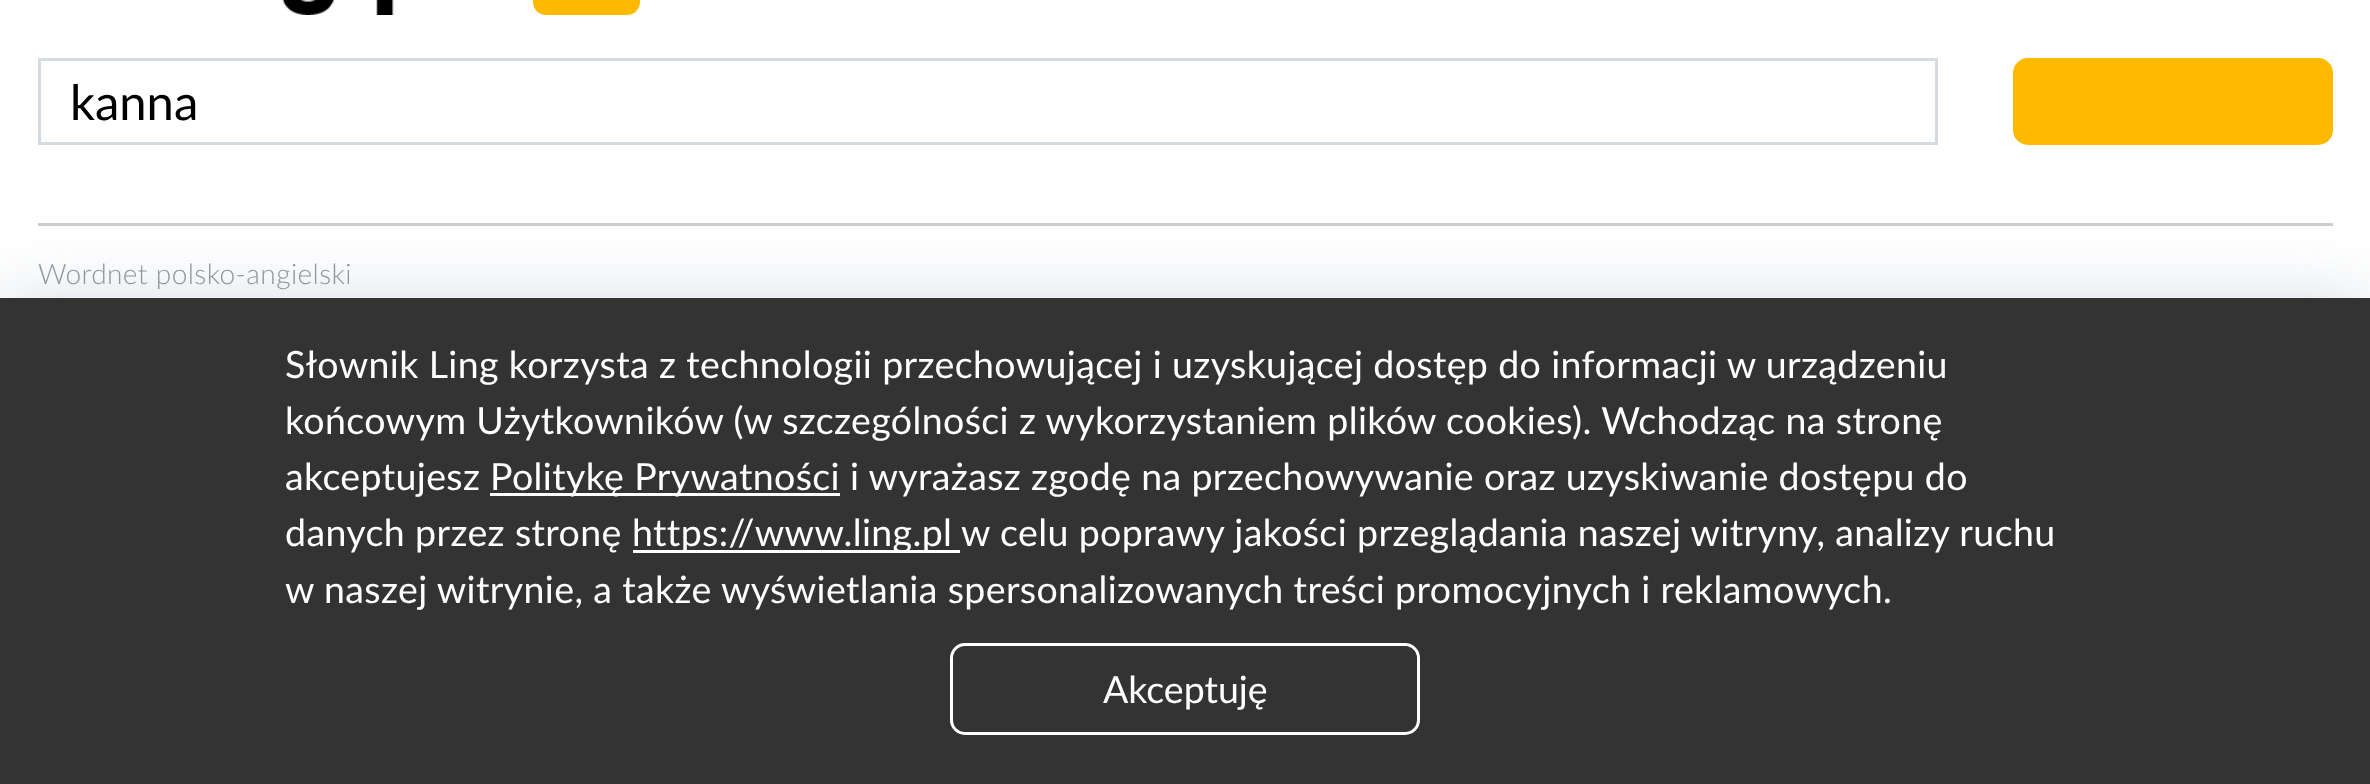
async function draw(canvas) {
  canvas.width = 2370
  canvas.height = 784
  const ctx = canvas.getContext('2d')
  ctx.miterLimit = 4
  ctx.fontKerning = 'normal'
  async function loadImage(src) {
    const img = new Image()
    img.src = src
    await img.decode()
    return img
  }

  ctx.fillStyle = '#fff'
  ctx.fillRect(0, 0, 2370, 784)
  ctx.drawImage(await loadImage('image0.png'), 282, 0, 112, 15)
  ctx.fillStyle = '#ffba00'
  ctx.beginPath()
  ctx.roundRect(533, -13, 107, 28, 13)
  ctx.fill()
  ctx.strokeStyle = '#d6dbdf'
  ctx.lineWidth = 3
  ctx.strokeRect(39.5, 59.5, 1897, 84)
  ctx.font = '49px Lato'
  ctx.fillStyle = '#000'
  ctx.fillText('kanna', 70, 120)
  ctx.fillStyle = '#ffba00'
  ctx.beginPath()
  ctx.roundRect(2014.5, 59.5, 317, 84, 13.5)
  ctx.fill()
  ctx.strokeStyle = '#ffba00'
  ctx.stroke()
  ctx.fillStyle = '#ccc'
  ctx.fillRect(38, 223, 2295, 3)
  ctx.letterSpacing = '0.38px'
  ctx.font = '300 28.1px Lato'
  ctx.fillStyle = '#999'
  ctx.fillText('Wordnet polsko-angielski', 38, 284)
  ctx.fillStyle = '#3c598333'
  ctx.filter = 'blur(34px)'
  ctx.beginPath()
  ctx.rect(0, 298, 2370, 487)
  ctx.fill()
  ctx.filter = 'none'
  ctx.fillStyle = '#333'
  ctx.fillRect(0, 298, 2370, 486)
  ctx.font = '37.5px Lato'
  ctx.fillStyle = '#fff'
  ctx.fillText('Słownik Ling korzysta z technologii przechowującej i uzyskującej dostęp do informacji w urządzeniu', 285, 378)
  ctx.fillText('końcowym Użytkowników (w szczególności z wykorzystaniem plików cookies). Wchodząc na stronę', 285, 434)
  ctx.fillText('akceptujesz', 285, 490)
  ctx.fillRect(490, 493, 350, 3)
  ctx.fillText('Politykę Prywatności i wyrażasz zgodę na przechowywanie oraz uzyskiwanie dostępu do', 490, 490)
  ctx.fillText('danych przez stronę', 285, 546)
  ctx.fillRect(633, 550, 327, 3)
  ctx.fillText('https://www.ling.pl', 632, 546)
  ctx.fillText('w celu poprawy jakości przeglądania naszej witryny, analizy ruchu', 961, 546)
  ctx.fillText('w naszej witrynie, a także wyświetlania spersonalizowanych treści promocyjnych i reklamowych.', 285, 603)
  ctx.beginPath()
  ctx.roundRect(951.5, 644.5, 467, 89, 13.5)
  ctx.strokeStyle = '#fff'
  ctx.stroke()
  ctx.letterSpacing = '0px'
  ctx.fillText('Akceptuję', 1103, 703)
}

draw(document.querySelector('canvas'))
